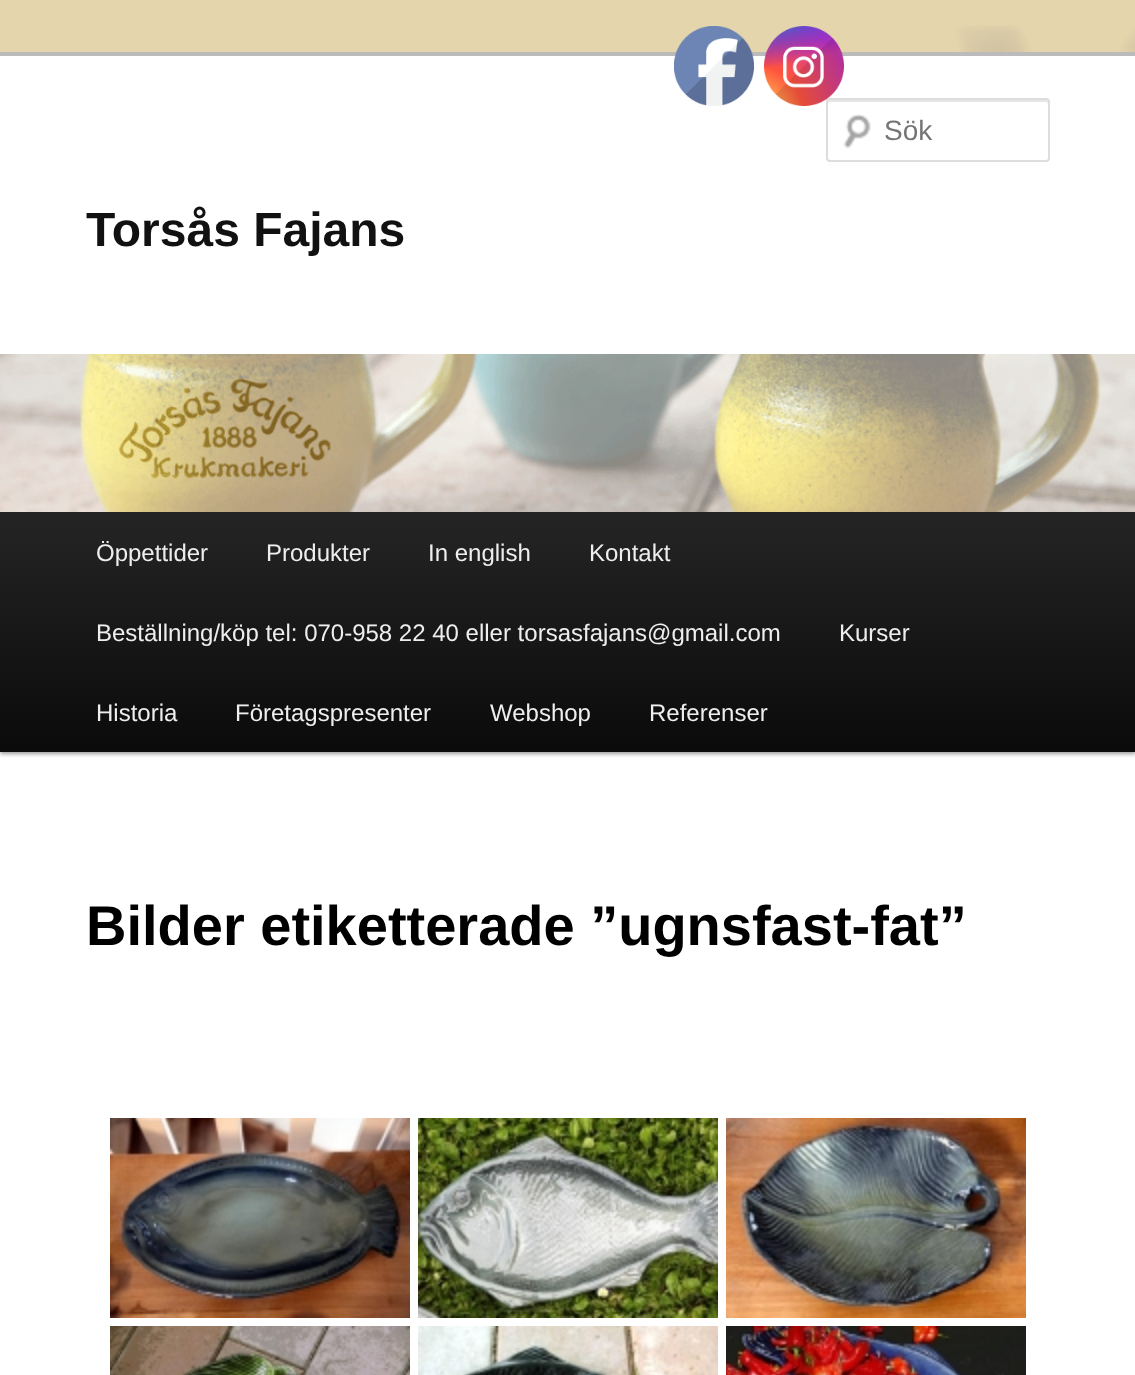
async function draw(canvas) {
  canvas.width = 1135
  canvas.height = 1375
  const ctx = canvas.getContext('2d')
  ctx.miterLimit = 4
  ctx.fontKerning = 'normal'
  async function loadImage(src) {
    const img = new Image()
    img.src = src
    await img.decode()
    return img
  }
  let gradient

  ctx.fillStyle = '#e5d5ad'
  ctx.fillRect(0, 0, 1135, 1375)
  ctx.drawImage(await loadImage('image0.png'), 0, 25, 1135, 27)
  ctx.fillStyle = '#fff'
  ctx.fillRect(0, 56, 1135, 1319)
  ctx.fillStyle = '#bbb'
  ctx.fillRect(0, 52, 1135, 4)
  ctx.drawImage(await loadImage('image1.png'), 674, 26, 80, 80)
  ctx.fillStyle = '#e6e6e6'
  ctx.beginPath()
  ctx.moveTo(830, 102)
  ctx.lineTo(1046, 102)
  ctx.bezierCurveTo(1047, 102, 1048, 103, 1048, 104)
  ctx.lineTo(1048, 102)
  ctx.bezierCurveTo(1048, 101, 1047, 100, 1046, 100)
  ctx.lineTo(830, 100)
  ctx.bezierCurveTo(829, 100, 828, 101, 828, 102)
  ctx.lineTo(828, 104)
  ctx.bezierCurveTo(828, 103, 829, 102, 830, 102)
  ctx.closePath()
  ctx.fill()
  ctx.drawImage(await loadImage('image3.png'), 843, 114, 28, 35)
  ctx.beginPath()
  ctx.roundRect(827, 99, 222, 62, 3)
  ctx.strokeStyle = '#ddd'
  ctx.lineWidth = 2
  ctx.stroke()
  ctx.drawImage(await loadImage('image2.png'), 764, 26, 80, 80)
  ctx.font = '28px Liberation Sans'
  ctx.fillStyle = '#757575'
  ctx.fillText('Sök', 884, 140)
  ctx.font = 'bold 48px Liberation Sans'
  ctx.fillStyle = '#111'
  ctx.fillText('Torsås Fajans', 86, 246)
  ctx.fillStyle = '#00000066'
  ctx.filter = 'blur(2px)'
  ctx.beginPath()
  ctx.rect(0, 514, 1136, 240)
  ctx.fill()
  ctx.filter = 'none'
  ctx.drawImage(await loadImage('image4.png'), 0, 354, 1135, 158)
  gradient = ctx.createLinearGradient(568, 512, 568, 752)
  gradient.addColorStop(0, '#252525')
  gradient.addColorStop(1, '#0a0a0a')
  ctx.fillStyle = gradient
  ctx.fillRect(0, 512, 1135, 240)
  ctx.font = '24px Liberation Sans'
  ctx.fillStyle = '#eee'
  ctx.fillText('Öppettider', 96, 561)
  ctx.fillText('Produkter', 266, 561)
  ctx.fillText('In english', 428, 561)
  ctx.fillText('Kontakt', 589, 561)
  ctx.fillText('Beställning/köp tel: 070-958 22 40 eller torsasfajans@gmail.com', 96, 641)
  ctx.fillText('Kurser', 839, 641)
  ctx.fillText('Historia', 96, 721)
  ctx.fillText('Företagspresenter', 235, 721)
  ctx.fillText('Webshop', 490, 721)
  ctx.fillText('Referenser', 649, 721)
  ctx.font = 'bold 56px Liberation Sans'
  ctx.fillStyle = '#000'
  ctx.fillText('Bilder etiketterade ”ugnsfast-fat”', 86, 945)
  ctx.drawImage(await loadImage('image5.png'), 110, 1118, 300, 200)
  ctx.drawImage(await loadImage('image6.png'), 418, 1118, 300, 200)
  ctx.drawImage(await loadImage('image7.png'), 726, 1118, 300, 200)
  ctx.drawImage(await loadImage('image8.png'), 110, 1326, 300, 49)
  ctx.drawImage(await loadImage('image9.png'), 418, 1326, 300, 49)
  ctx.drawImage(await loadImage('image10.png'), 726, 1326, 300, 49)
}

draw(document.querySelector('canvas'))
